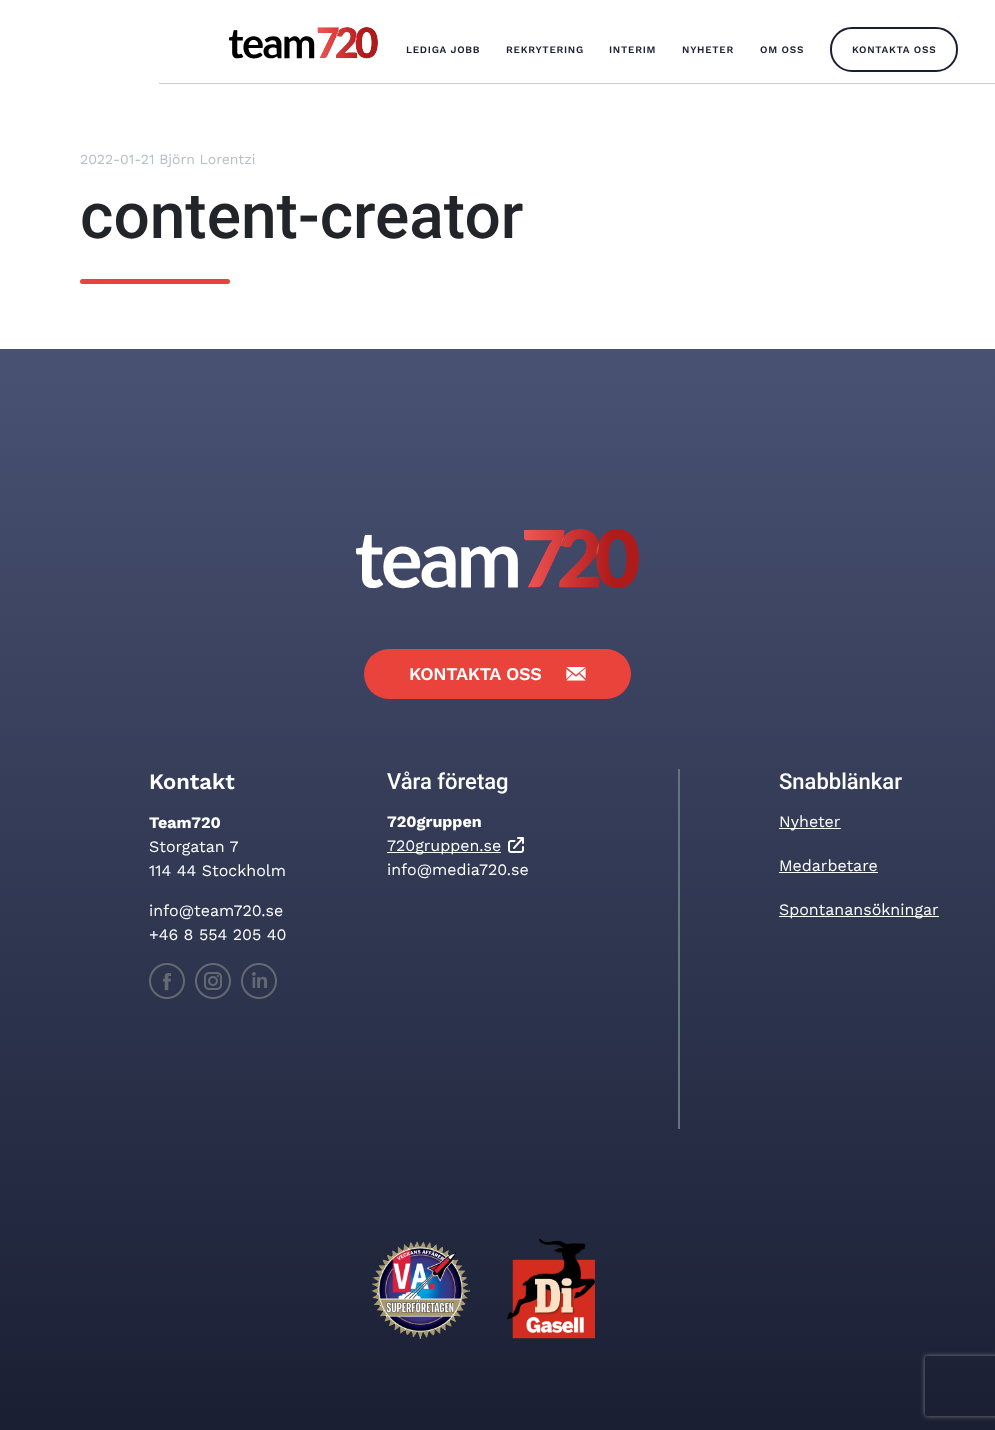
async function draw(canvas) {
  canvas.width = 995
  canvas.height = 1430
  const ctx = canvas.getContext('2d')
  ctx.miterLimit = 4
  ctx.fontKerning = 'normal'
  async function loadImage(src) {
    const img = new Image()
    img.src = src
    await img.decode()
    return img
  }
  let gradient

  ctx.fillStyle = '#fff'
  ctx.fillRect(0, 0, 995, 1430)
  ctx.fillStyle = '#c4cdd5'
  ctx.fillRect(159, 83, 836, 1)
  ctx.drawImage(await loadImage('image0.png'), 229, 27, 149, 32)
  ctx.letterSpacing = '0.75px'
  ctx.font = '600 10px Work Sans'
  ctx.fillStyle = '#191e32'
  ctx.fillText('LEDIGA JOBB', 406, 53)
  ctx.fillText('REKRYTERING', 506, 53)
  ctx.fillText('INTERIM', 609, 53)
  ctx.fillText('NYHETER', 682, 53)
  ctx.fillText('OM OSS', 760, 53)
  ctx.beginPath()
  ctx.roundRect(831, 28, 126, 43, 21)
  ctx.strokeStyle = '#191e32'
  ctx.lineWidth = 2
  ctx.stroke()
  ctx.fillText('KONTAKTA OSS', 852, 53)
  ctx.letterSpacing = '0px'
  ctx.font = '14px Work Sans'
  ctx.fillStyle = '#b7bec7'
  ctx.fillText('2022-01-21 Björn Lorentzi', 80, 164)
  ctx.font = '500 64px Roboto'
  ctx.fillStyle = '#212429'
  ctx.fillText('content-creator', 80, 238)
  ctx.fillStyle = '#ea433c'
  ctx.beginPath()
  ctx.roundRect(80, 279, 150, 5, 2.5)
  ctx.fill()
  gradient = ctx.createLinearGradient(498, 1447, 498, 349)
  gradient.addColorStop(0, '#191e32')
  gradient.addColorStop(1, '#495273')
  gradient.addColorStop(1, '#e5e5e5')
  ctx.fillStyle = gradient
  ctx.fillRect(0, 349, 995, 1081)
  ctx.drawImage(await loadImage('image1.png'), 356, 529, 283, 60)
  ctx.fillStyle = '#ea433c'
  ctx.beginPath()
  ctx.roundRect(364, 649, 267, 50, 25)
  ctx.fill()
  ctx.letterSpacing = '-0.25px'
  ctx.font = '600 18px Work Sans'
  ctx.fillStyle = '#fff'
  ctx.fillText('KONTAKTA OSS', 409, 680)
  ctx.drawImage(await loadImage('image2.png'), 566, 667, 20, 14)
  ctx.letterSpacing = '0px'
  ctx.font = '600 22px Work Sans'
  ctx.fillText('Kontakt', 149, 789)
  ctx.font = 'bold 16px Work Sans'
  ctx.fillText('Team720', 149, 828)
  ctx.font = '16px Work Sans'
  ctx.fillText('Storgatan 7', 149, 852)
  ctx.fillText('114 44 Stockholm', 149, 876)
  ctx.fillText('info@team720.se', 149, 916)
  ctx.fillText('+46 8 554 205 40', 149, 940)
  ctx.drawImage(await loadImage('image3.png'), 149, 963, 36, 36)
  ctx.drawImage(await loadImage('image4.png'), 195, 963, 36, 36)
  ctx.drawImage(await loadImage('image5.png'), 241, 963, 36, 36)
  ctx.font = '500 22px Roboto'
  ctx.fillText('Våra företag', 387, 789)
  ctx.font = 'bold 16px Work Sans'
  ctx.fillText('720gruppen', 387, 827)
  ctx.fillRect(387, 852, 114, 1)
  ctx.font = '16px Work Sans'
  ctx.fillText('720gruppen.se', 387, 851)
  ctx.drawImage(await loadImage('image6.png'), 508, 837, 16, 16)
  ctx.fillText('info@media720.se', 387, 875)
  ctx.fillStyle = '#637381'
  ctx.fillRect(678, 769, 2, 360)
  ctx.font = '500 22px Roboto'
  ctx.fillStyle = '#fff'
  ctx.fillText('Snabblänkar', 779, 789)
  ctx.fillRect(779, 828, 62, 1)
  ctx.font = '16px Work Sans'
  ctx.fillText('Nyheter', 779, 827)
  ctx.fillText('Medarbetare', 779, 871)
  ctx.fillRect(779, 872, 99, 1)
  ctx.fillRect(779, 916, 160, 1)
  ctx.fillText('Spontanansökningar', 779, 915)
  ctx.drawImage(await loadImage('image7.png'), 371, 1241, 99, 98)
  ctx.drawImage(await loadImage('image8.png'), 507, 1239, 88, 100)
  ctx.save()
  ctx.beginPath()
  ctx.moveTo(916, 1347)
  ctx.lineTo(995, 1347)
  ctx.lineTo(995, 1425)
  ctx.lineTo(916, 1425)
  ctx.closePath()
  ctx.moveTo(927, 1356)
  ctx.lineTo(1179, 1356)
  ctx.bezierCurveTo(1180, 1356, 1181, 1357, 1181, 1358)
  ctx.lineTo(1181, 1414)
  ctx.bezierCurveTo(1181, 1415, 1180, 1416, 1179, 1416)
  ctx.lineTo(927, 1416)
  ctx.bezierCurveTo(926, 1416, 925, 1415, 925, 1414)
  ctx.lineTo(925, 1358)
  ctx.bezierCurveTo(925, 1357, 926, 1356, 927, 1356)
  ctx.closePath()
  ctx.clip('evenodd')
  ctx.fillStyle = '#808080'
  ctx.filter = 'blur(2.5px)'
  ctx.beginPath()
  ctx.roundRect(925, 1356, 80, 60, 2)
  ctx.fill()
  ctx.filter = 'none'
  ctx.restore()
}

draw(document.querySelector('canvas'))
